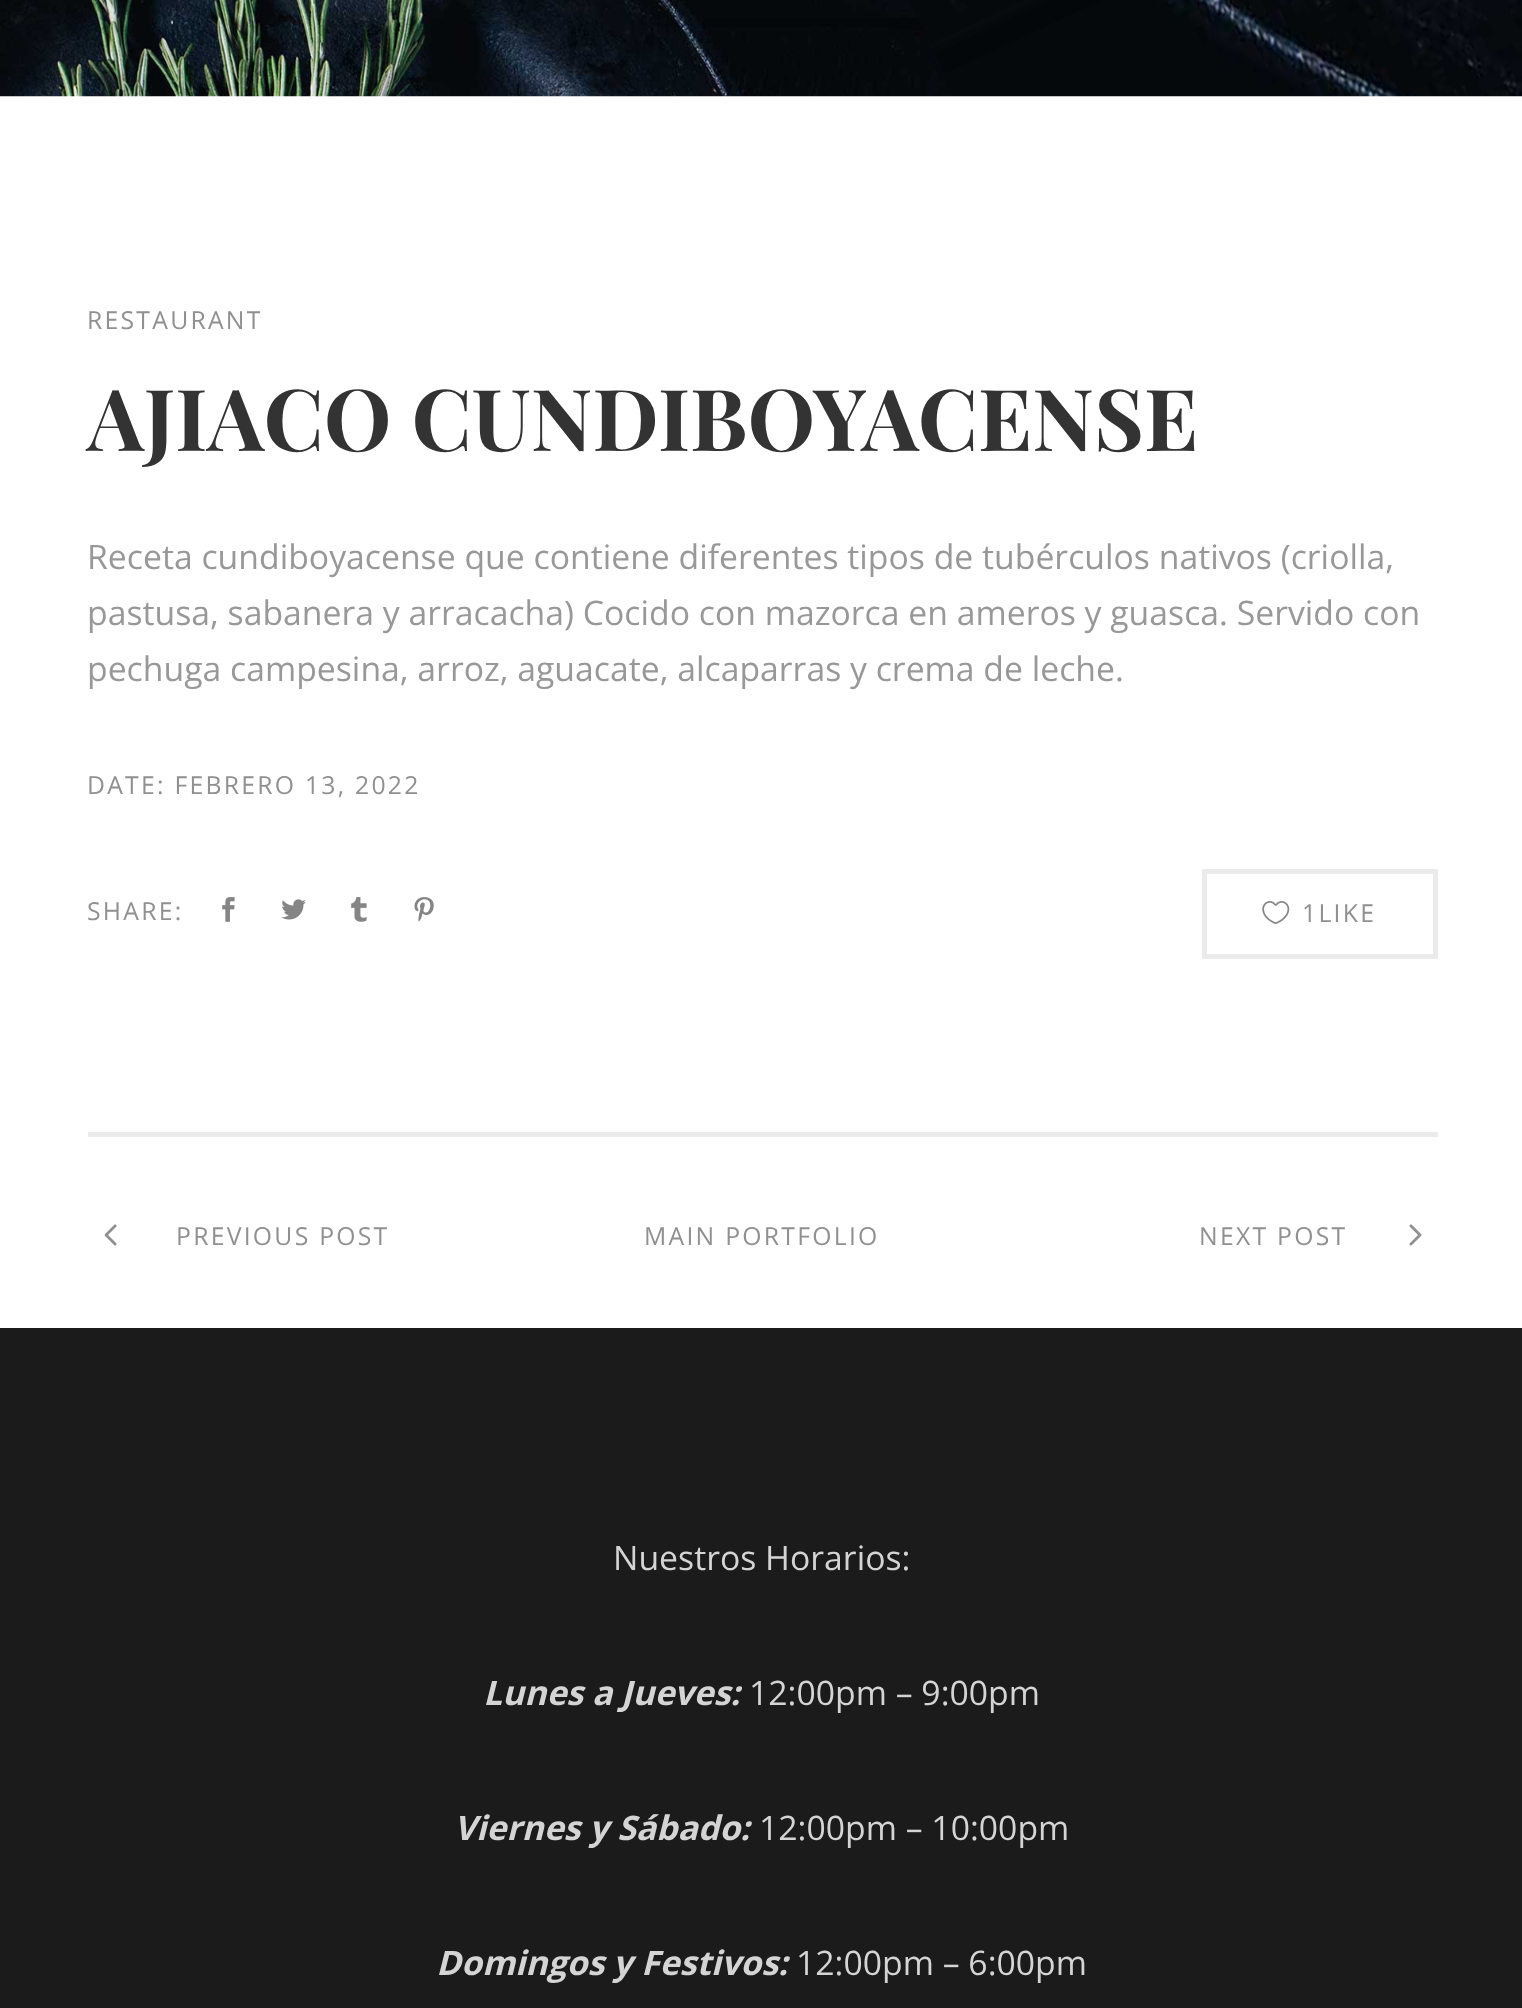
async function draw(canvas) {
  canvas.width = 1522
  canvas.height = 2008
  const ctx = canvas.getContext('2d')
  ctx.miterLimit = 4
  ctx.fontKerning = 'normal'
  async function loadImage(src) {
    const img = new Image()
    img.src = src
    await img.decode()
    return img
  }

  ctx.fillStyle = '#fff'
  ctx.fillRect(0, 0, 1522, 2008)
  ctx.drawImage(await loadImage('image0.png'), 0, 0, 1522, 97)
  ctx.letterSpacing = '2.25px'
  ctx.font = '24.75px Open Sans'
  ctx.fillStyle = '#909090'
  ctx.fillText('RESTAURANT', 87, 329)
  ctx.letterSpacing = '0px'
  ctx.font = 'bold 85.5px Playfair Display'
  ctx.fillStyle = '#333'
  ctx.fillText('AJIACO CUNDIBOYACENSE', 87, 451)
  ctx.font = '33.75px Open Sans'
  ctx.fillStyle = '#989898'
  ctx.fillText('Receta cundiboyacense que contiene diferentes tipos de tubérculos nativos (criolla,', 87, 569)
  ctx.fillText('pastusa, sabanera y arracacha) Cocido con mazorca en ameros y guasca. Servido con', 87, 625)
  ctx.fillText('pechuga campesina, arroz, aguacate, alcaparras y crema de leche.', 87, 681)
  ctx.letterSpacing = '2.25px'
  ctx.font = '24.75px Open Sans'
  ctx.fillStyle = '#909090'
  ctx.fillText('DATE: FEBRERO 13, 2022', 87, 794)
  ctx.fillText('SHARE:', 87, 920)
  ctx.drawImage(await loadImage('image1.png'), 222, 897, 13, 25)
  ctx.drawImage(await loadImage('image2.png'), 281, 899, 25, 21)
  ctx.drawImage(await loadImage('image3.png'), 351, 897, 16, 25)
  ctx.drawImage(await loadImage('image4.png'), 414, 897, 20, 25)
  ctx.strokeStyle = '#ebebeb'
  ctx.lineWidth = 5
  ctx.strokeRect(1204.5, 871.5, 231, 85)
  ctx.drawImage(await loadImage('image5.png'), 1262, 901, 28, 24)
  ctx.fillText('1LIKE', 1302, 922)
  ctx.fillStyle = '#ebebeb'
  ctx.fillRect(88, 1132, 1350, 5)
  ctx.drawImage(await loadImage('image6.png'), 104, 1224, 13, 22)
  ctx.fillStyle = '#909090'
  ctx.fillText('PREVIOUS POST', 176, 1245)
  ctx.fillText('MAIN PORTFOLIO', 644, 1245)
  ctx.fillText('NEXT POST', 1199, 1245)
  ctx.drawImage(await loadImage('image7.png'), 1409, 1224, 13, 22)
  ctx.fillStyle = '#1b1b1b'
  ctx.fillRect(0, 1328, 1522, 680)
  ctx.letterSpacing = '0px'
  ctx.font = '33.75px Open Sans'
  ctx.fillStyle = '#d4d4d4'
  ctx.fillText('Nuestros Horarios:', 613, 1570)
  ctx.font = 'italic bold 33.75px Open Sans'
  ctx.fillText('Lunes a Jueves:', 483, 1705)
  ctx.font = '33.75px Open Sans'
  ctx.fillText('12:00pm – 9:00pm', 749, 1705)
  ctx.font = 'italic bold 33.75px Open Sans'
  ctx.fillText('Viernes y Sábado:', 454, 1840)
  ctx.font = '33.75px Open Sans'
  ctx.fillText('12:00pm – 10:00pm', 759, 1840)
  ctx.font = 'italic bold 33.75px Open Sans'
  ctx.fillText('Domingos y Festivos:', 436, 1975)
  ctx.font = '33.75px Open Sans'
  ctx.fillText('12:00pm – 6:00pm', 796, 1975)
}

draw(document.querySelector('canvas'))
